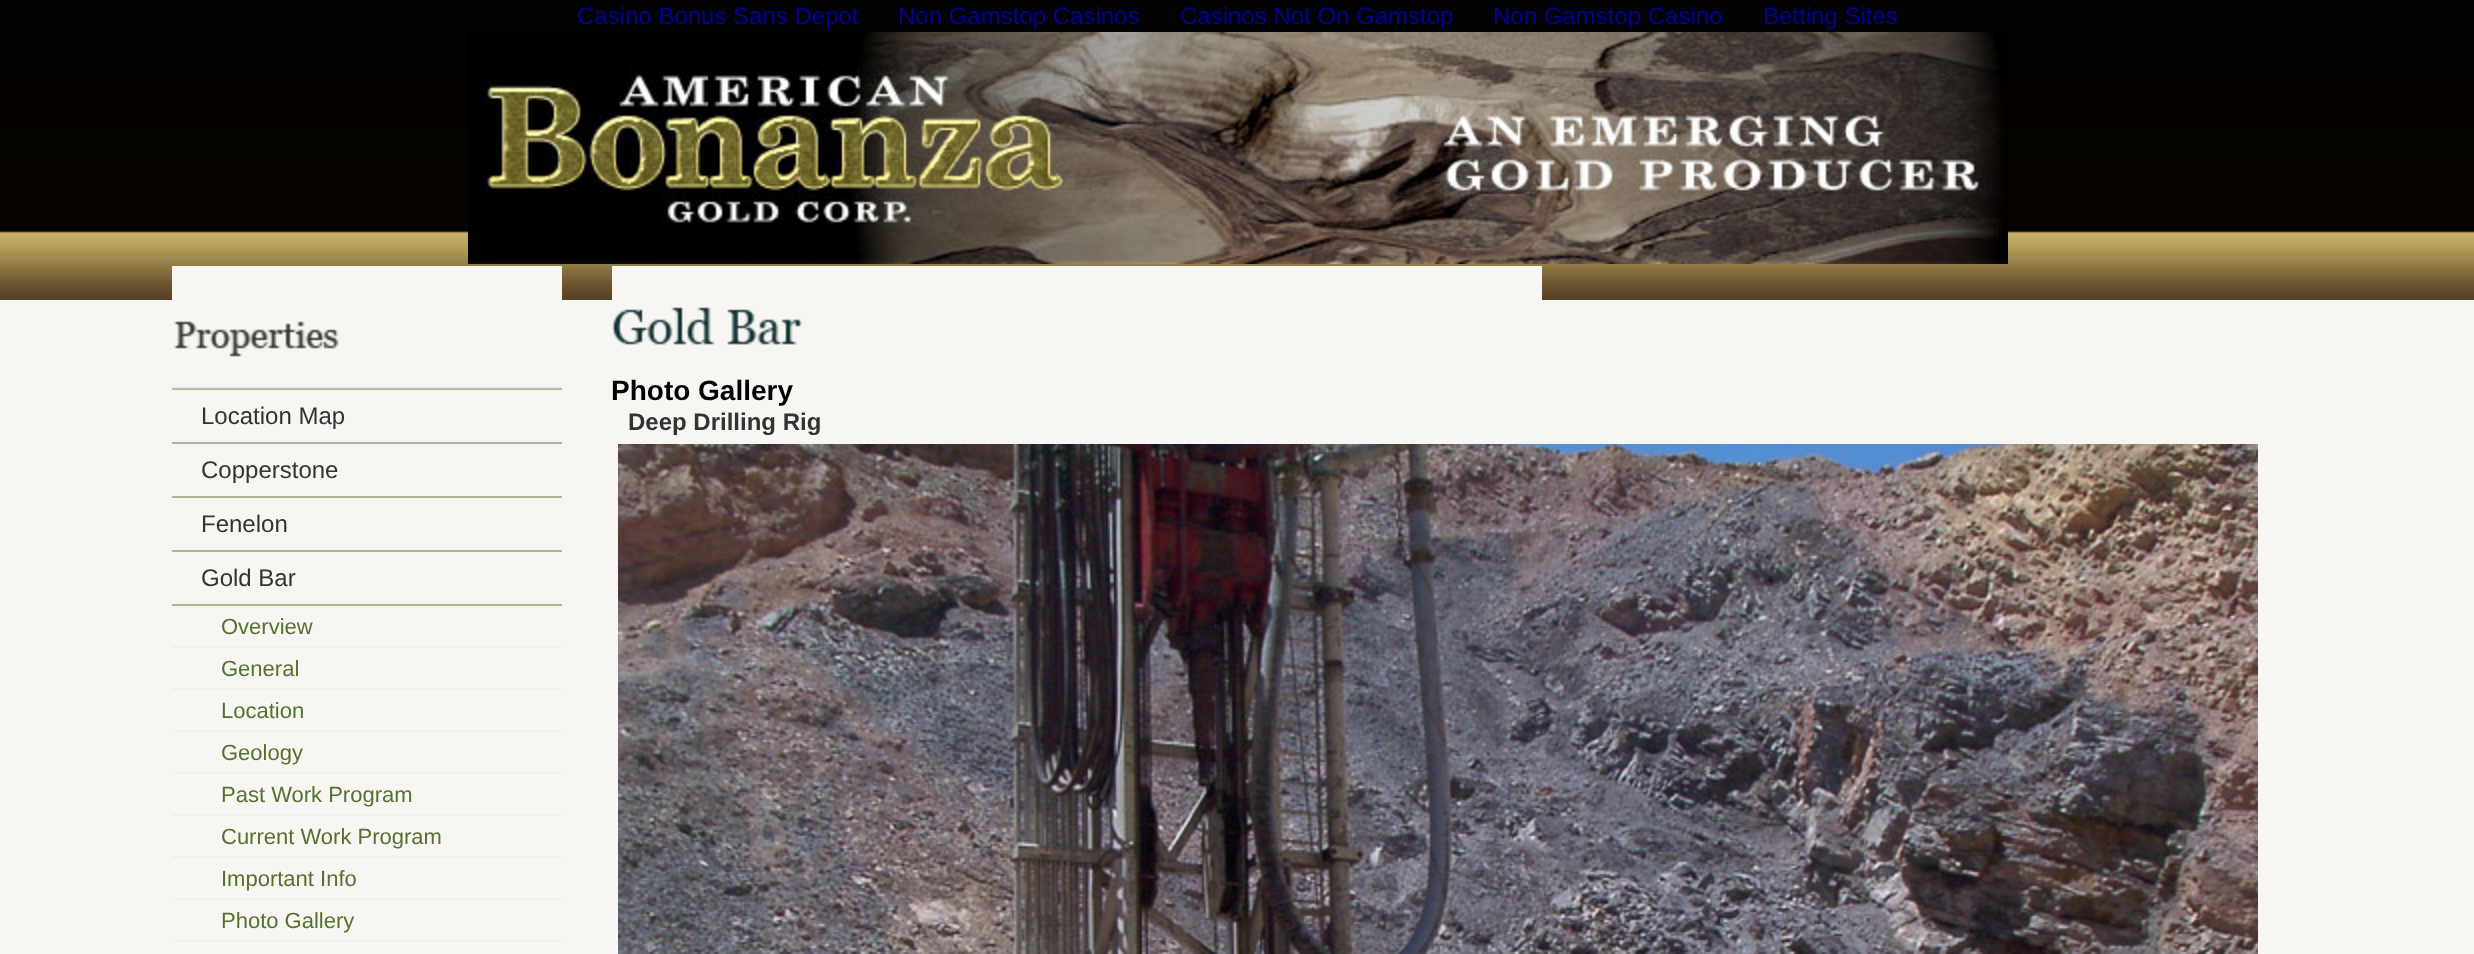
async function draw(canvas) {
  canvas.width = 2474
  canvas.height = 954
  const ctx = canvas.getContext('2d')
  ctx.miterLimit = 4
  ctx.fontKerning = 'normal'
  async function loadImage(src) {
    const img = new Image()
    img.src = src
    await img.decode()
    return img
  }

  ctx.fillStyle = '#f7f6f2'
  ctx.fillRect(0, 0, 2474, 954)
  ctx.drawImage(await loadImage('image0.png'), 0, 0, 2474, 300)
  ctx.font = '24px Liberation Sans'
  ctx.fillStyle = '#009'
  ctx.fillText('Casino Bonus Sans Depot', 577, 24)
  ctx.fillText('Non Gamstop Casinos', 898, 24)
  ctx.fillText('Casinos Not On Gamstop', 1180, 24)
  ctx.fillText('Non Gamstop Casino', 1493, 24)
  ctx.fillText('Betting Sites', 1763, 24)
  ctx.drawImage(await loadImage('image1.png'), 468, 32, 1540, 232)
  ctx.drawImage(await loadImage('image2.png'), 172, 266, 390, 124)
  ctx.fillStyle = '#a9b897'
  ctx.fillRect(172, 442, 390, 2)
  ctx.fillStyle = '#333'
  ctx.fillText('Location Map', 201, 424)
  ctx.fillStyle = '#a9b897'
  ctx.fillRect(172, 496, 390, 2)
  ctx.fillStyle = '#333'
  ctx.fillText('Copperstone', 201, 478)
  ctx.fillStyle = '#a9b897'
  ctx.fillRect(172, 550, 390, 2)
  ctx.fillStyle = '#333'
  ctx.fillText('Fenelon', 201, 532)
  ctx.fillStyle = '#a9b897'
  ctx.fillRect(172, 604, 390, 2)
  ctx.fillStyle = '#333'
  ctx.fillText('Gold Bar', 201, 586)
  ctx.fillStyle = '#f0f0f0'
  ctx.fillRect(172, 646, 390, 2)
  ctx.font = '22px Liberation Sans'
  ctx.fillStyle = '#53712f'
  ctx.fillText('Overview', 221, 634)
  ctx.fillStyle = '#f0f0f0'
  ctx.fillRect(172, 688, 390, 2)
  ctx.fillStyle = '#53712f'
  ctx.fillText('General', 221, 676)
  ctx.fillStyle = '#f0f0f0'
  ctx.fillRect(172, 730, 390, 2)
  ctx.fillStyle = '#53712f'
  ctx.fillText('Location', 221, 718)
  ctx.fillStyle = '#f0f0f0'
  ctx.fillRect(172, 772, 390, 2)
  ctx.fillStyle = '#53712f'
  ctx.fillText('Geology', 221, 760)
  ctx.fillStyle = '#f0f0f0'
  ctx.fillRect(172, 814, 390, 2)
  ctx.fillStyle = '#53712f'
  ctx.fillText('Past Work Program', 221, 802)
  ctx.fillStyle = '#f0f0f0'
  ctx.fillRect(172, 856, 390, 2)
  ctx.fillStyle = '#53712f'
  ctx.fillText('Current Work Program', 221, 844)
  ctx.fillStyle = '#f0f0f0'
  ctx.fillRect(172, 898, 390, 2)
  ctx.fillStyle = '#53712f'
  ctx.fillText('Important Info', 221, 886)
  ctx.fillStyle = '#f0f0f0'
  ctx.fillRect(172, 940, 390, 2)
  ctx.fillStyle = '#53712f'
  ctx.fillText('Photo Gallery', 221, 928)
  ctx.drawImage(await loadImage('image3.png'), 612, 266, 930, 79)
  ctx.font = 'bold 28px Liberation Sans'
  ctx.fillStyle = '#000'
  ctx.fillText('Photo Gallery', 611, 400)
  ctx.font = 'bold 24px Liberation Sans'
  ctx.fillStyle = '#333'
  ctx.fillText('Deep Drilling Rig', 628, 430)
  ctx.drawImage(await loadImage('image4.png'), 618, 444, 1640, 510)
}

draw(document.querySelector('canvas'))
